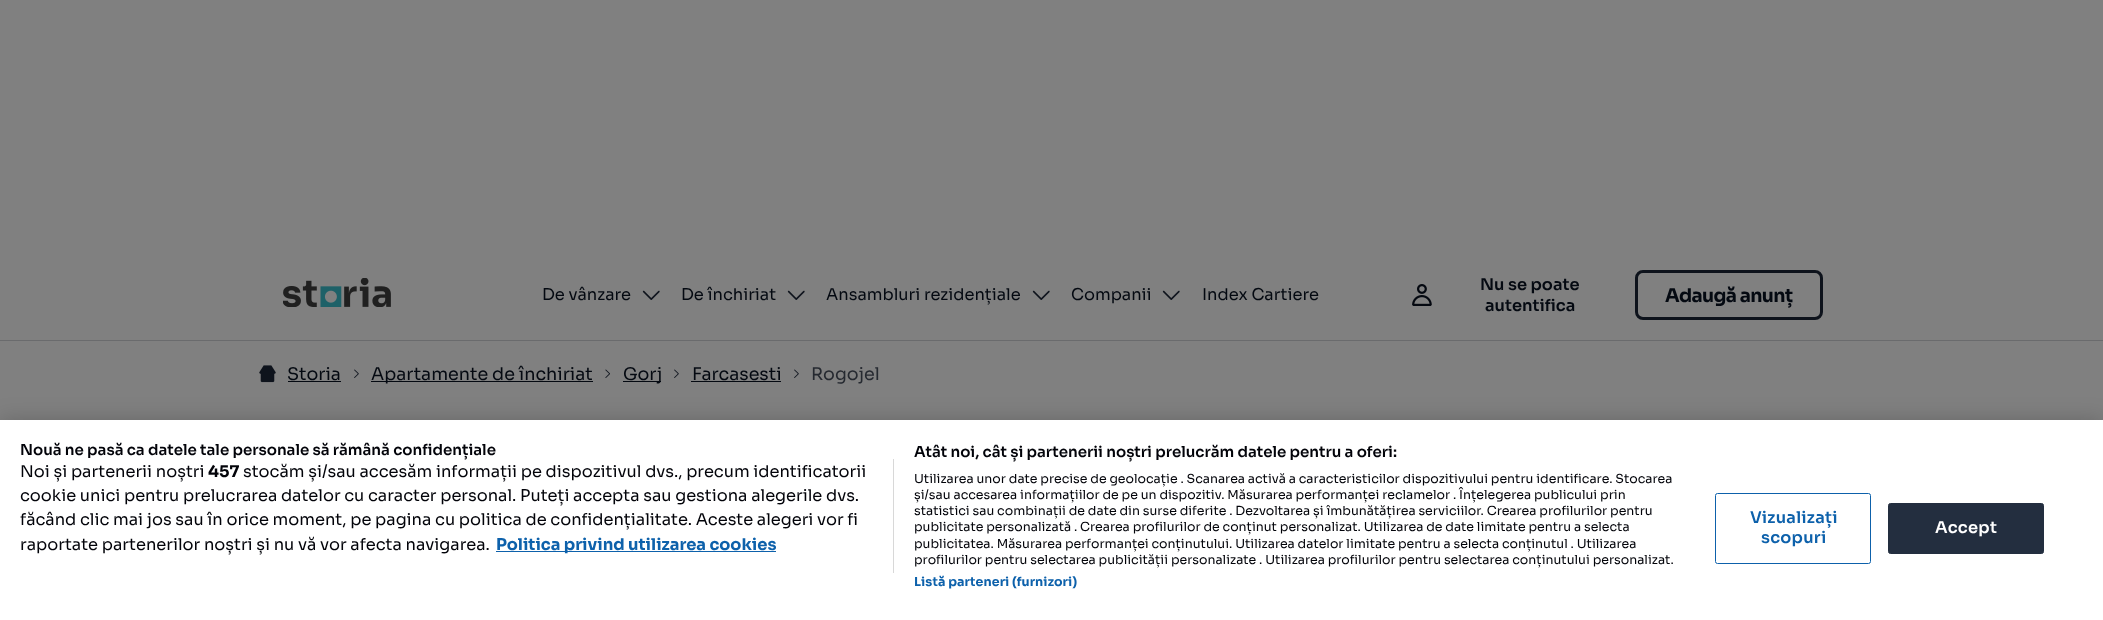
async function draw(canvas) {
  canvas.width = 2103
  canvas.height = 620
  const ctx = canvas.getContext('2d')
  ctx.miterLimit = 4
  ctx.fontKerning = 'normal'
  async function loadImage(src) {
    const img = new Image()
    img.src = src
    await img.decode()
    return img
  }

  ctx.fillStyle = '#808080'
  ctx.fillRect(0, 0, 2103, 620)
  ctx.fillStyle = '#6a6b6d'
  ctx.fillRect(0, 340, 2103, 1)
  ctx.drawImage(await loadImage('image0.png'), 283, 278, 108, 29)
  ctx.font = '16.25px Sora'
  ctx.fillStyle = '#040911'
  ctx.fillText('De vânzare', 542, 300)
  ctx.drawImage(await loadImage('image1.png'), 642, 290, 18, 10)
  ctx.fillText('De închiriat', 681, 300)
  ctx.drawImage(await loadImage('image1.png'), 787, 290, 18, 10)
  ctx.fillText('Ansambluri rezidențiale', 826, 300)
  ctx.drawImage(await loadImage('image1.png'), 1032, 290, 18, 10)
  ctx.fillText('Companii', 1071, 300)
  ctx.drawImage(await loadImage('image1.png'), 1162, 290, 18, 10)
  ctx.fillText('Index Cartiere', 1202, 300)
  ctx.drawImage(await loadImage('image2.png'), 1412, 284, 20, 22)
  ctx.font = '600 16.25px Sora'
  ctx.fillText('Nu se poate', 1480, 290)
  ctx.fillText('autentifica', 1485, 311)
  ctx.beginPath()
  ctx.roundRect(1636.5, 271.5, 185, 47, 6.5)
  ctx.strokeStyle = '#0e131c'
  ctx.lineWidth = 3
  ctx.stroke()
  ctx.letterSpacing = '-0.6px'
  ctx.font = 'bold 18.75px Sora'
  ctx.fillText('Adaugă anunț', 1665, 302)
  ctx.drawImage(await loadImage('image3.png'), 259, 365, 17, 18)
  ctx.letterSpacing = '0px'
  ctx.font = '17.5px Sora'
  ctx.fillText('Storia', 287, 380)
  ctx.fillRect(288, 381, 53, 1)
  ctx.drawImage(await loadImage('image4.png'), 354, 369, 5, 9)
  ctx.fillRect(371, 381, 222, 1)
  ctx.fillText('Apartamente de închiriat', 371, 380)
  ctx.drawImage(await loadImage('image5.png'), 605, 369, 5, 9)
  ctx.fillRect(623, 381, 38, 1)
  ctx.fillText('Gorj', 623, 380)
  ctx.drawImage(await loadImage('image4.png'), 674, 369, 5, 9)
  ctx.fillText('Farcasesti', 692, 380)
  ctx.fillRect(691, 381, 90, 1)
  ctx.drawImage(await loadImage('image4.png'), 794, 369, 5, 9)
  ctx.fillStyle = '#252930'
  ctx.fillText('Rogojel', 811, 380)
  ctx.fillStyle = '#00000033'
  ctx.filter = 'blur(11px)'
  ctx.beginPath()
  ctx.rect(0, 420, 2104, 200)
  ctx.fill()
  ctx.filter = 'none'
  ctx.fillStyle = '#fff'
  ctx.fillRect(0, 420, 2103, 200)
  ctx.font = '600 15px Sora'
  ctx.fillStyle = '#020309'
  ctx.fillText('Nouă ne pasă ca datele tale personale să rămână confidențiale', 20, 455)
  ctx.fillText('Atât noi, cât și partenerii noștri prelucrăm datele pentru a oferi:', 914, 457)
  ctx.font = '12.5px Sora'
  ctx.fillText('Utilizarea unor date precise de geolocație . Scanarea activă a caracteristicilor dispozitivului pentru identificare. Stocarea', 914, 483)
  ctx.fillText('și/sau accesarea informațiilor de pe un dispozitiv. Măsurarea performanței reclamelor . Înțelegerea publicului prin', 914, 499)
  ctx.fillText('statistici sau combinații de date din surse diferite . Dezvoltarea și îmbunătățirea serviciilor. Crearea profilurilor pentru', 914, 515)
  ctx.fillText('publicitate personalizată . Crearea profilurilor de conținut personalizat. Utilizarea de date limitate pentru a selecta', 914, 531)
  ctx.fillText('publicitatea. Măsurarea performanței conținutului. Utilizarea datelor limitate pentru a selecta conținutul . Utilizarea', 914, 548)
  ctx.fillText('profilurilor pentru selectarea publicității personalizate . Utilizarea profilurilor pentru selectarea conținutului personalizat.', 914, 564)
  ctx.letterSpacing = '0.1px'
  ctx.font = 'bold 12.5px Sora'
  ctx.fillStyle = '#0d61ab'
  ctx.fillText('Listă parteneri (furnizori)', 914, 586)
  ctx.fillStyle = '#d8d8d8'
  ctx.fillRect(893, 459, 1, 114)
  ctx.letterSpacing = '0px'
  ctx.font = '16.25px Sora'
  ctx.fillStyle = '#020309'
  ctx.fillText('Noi și partenerii noștri', 20, 477)
  ctx.font = 'bold 16.25px Sora'
  ctx.fillText('457', 208, 477)
  ctx.font = '16.25px Sora'
  ctx.fillText('stocăm și/sau accesăm informații pe dispozitivul dvs., precum identificatorii', 243, 477)
  ctx.fillText('cookie unici pentru prelucrarea datelor cu caracter personal. Puteți accepta sau gestiona alegerile dvs.', 20, 501)
  ctx.fillText('făcând clic mai jos sau în orice moment, pe pagina cu politica de confidențialitate. Aceste alegeri vor fi', 20, 525)
  ctx.fillText('raportate partenerilor noștri și nu vă vor afecta navigarea.', 20, 550)
  ctx.fillStyle = '#0d61ab'
  ctx.fillRect(496, 551, 280, 1)
  ctx.font = 'bold 16.25px Sora'
  ctx.fillText('Politica privind utilizarea cookies', 496, 550)
  ctx.beginPath()
  ctx.roundRect(1715.5, 493.5, 155, 70, 2)
  ctx.strokeStyle = '#0d61ab'
  ctx.lineWidth = 1
  ctx.stroke()
  ctx.letterSpacing = '0.25px'
  ctx.font = '600 16.25px Sora'
  ctx.fillText('Vizualizați', 1750, 523)
  ctx.fillText('scopuri', 1761, 543)
  ctx.fillStyle = '#232e3f'
  ctx.beginPath()
  ctx.roundRect(1888.5, 503.5, 155, 50, 2)
  ctx.fill()
  ctx.strokeStyle = '#232e3f'
  ctx.stroke()
  ctx.fillStyle = '#fff'
  ctx.fillText('Accept', 1935, 533)
}

draw(document.querySelector('canvas'))
